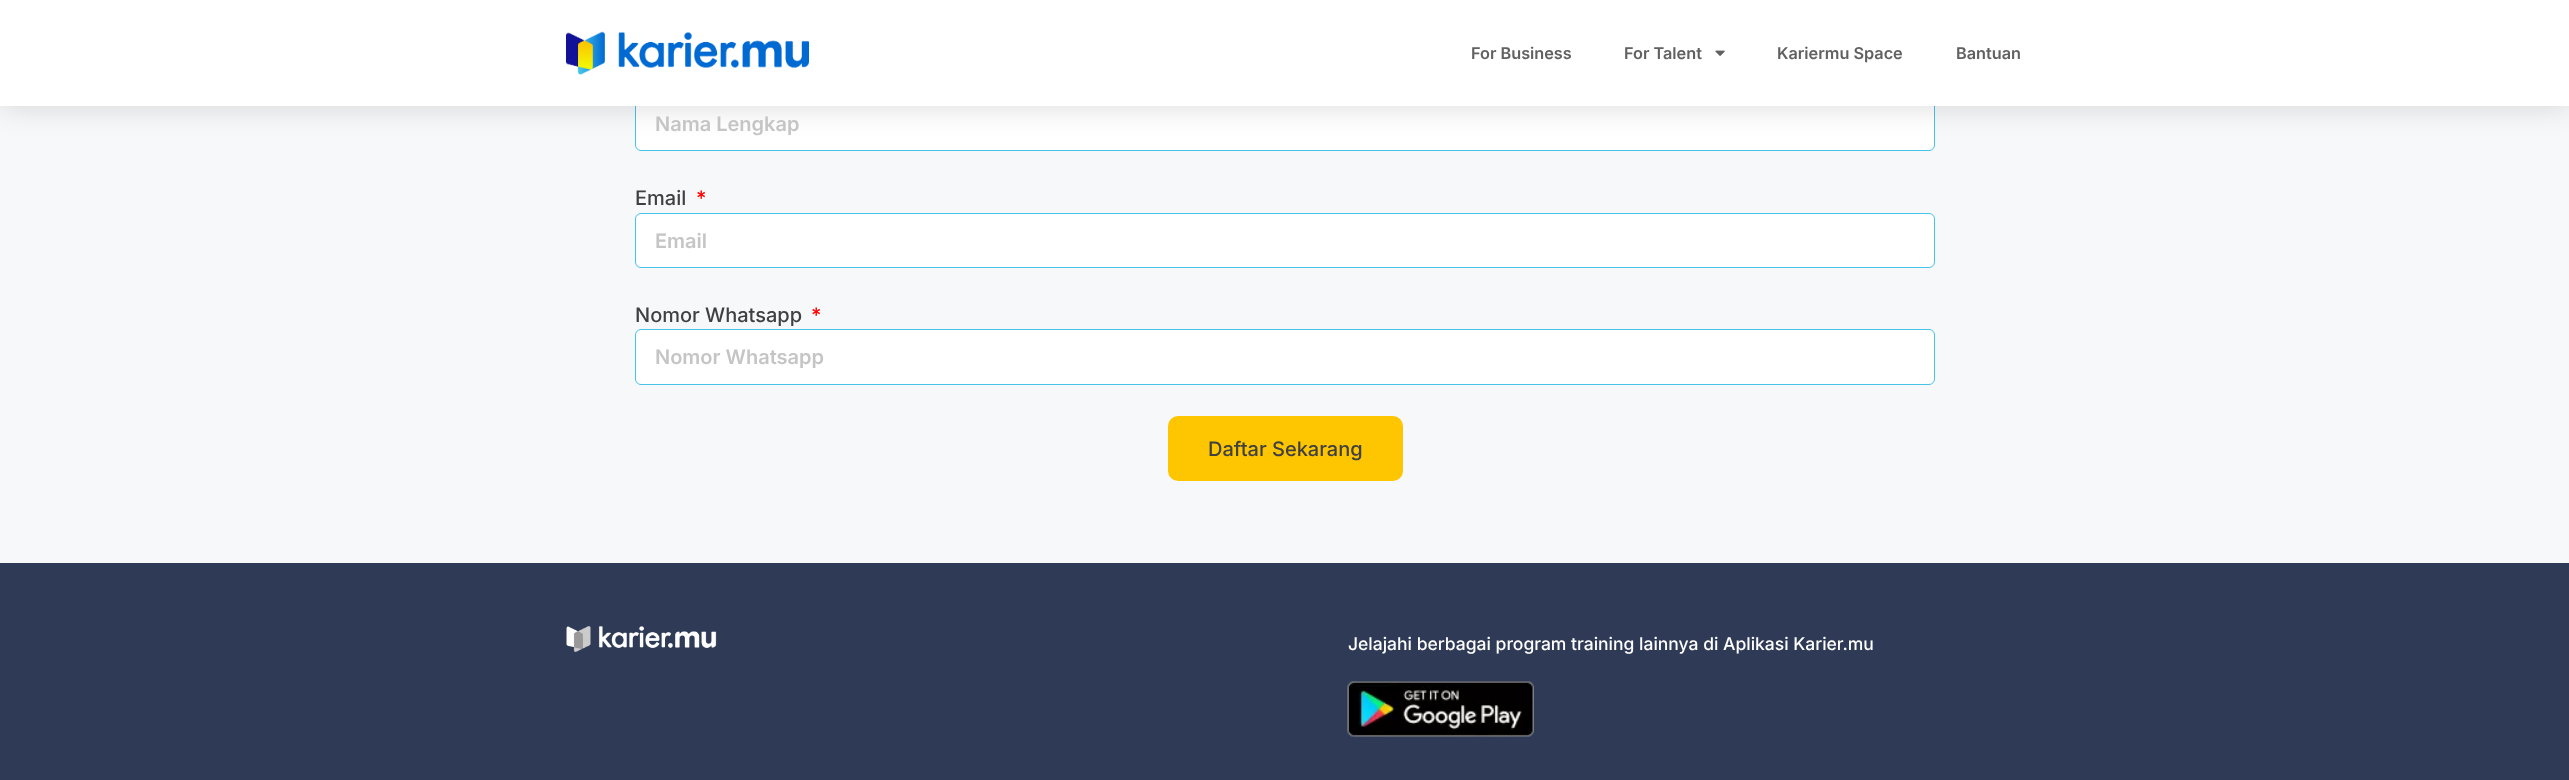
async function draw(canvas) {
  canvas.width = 2569
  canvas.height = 780
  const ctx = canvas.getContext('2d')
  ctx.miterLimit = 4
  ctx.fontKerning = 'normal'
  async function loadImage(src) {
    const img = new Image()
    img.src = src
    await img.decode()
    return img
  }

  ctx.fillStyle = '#f7f8f9'
  ctx.fillRect(0, 0, 2569, 780)
  ctx.fillStyle = '#fff'
  ctx.beginPath()
  ctx.roundRect(635.5, 96.5, 1299, 54, 5.5)
  ctx.fill()
  ctx.strokeStyle = '#45c3e9'
  ctx.stroke()
  ctx.fillStyle = '#00000026'
  ctx.filter = 'blur(15px)'
  ctx.beginPath()
  ctx.rect(0, 0, 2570, 106)
  ctx.fill()
  ctx.filter = 'none'
  ctx.fillStyle = '#fff'
  ctx.fillRect(0, 0, 2569, 106)
  ctx.drawImage(await loadImage('image0.png'), 566, 31, 243, 44)
  ctx.font = '600 16.25px Inter'
  ctx.fillStyle = '#616161'
  ctx.fillText('For Business', 1471, 59)
  ctx.fillText('For Talent', 1624, 59)
  ctx.drawImage(await loadImage('image1.png'), 1715, 50, 10, 6)
  ctx.fillText('Kariermu Space', 1777, 59)
  ctx.fillText('Bantuan', 1956, 59)
  ctx.font = '600 20px Inter'
  ctx.fillStyle = '#c5c5c5'
  ctx.fillText('Nama Lengkap', 655, 131)
  ctx.font = '500 20px Inter'
  ctx.fillStyle = '#404040'
  ctx.fillText('Email', 635, 205)
  ctx.fillStyle = '#f00'
  ctx.fillText('*', 696, 205)
  ctx.fillStyle = '#fff'
  ctx.beginPath()
  ctx.roundRect(635.5, 213.5, 1299, 54, 5.5)
  ctx.fill()
  ctx.stroke()
  ctx.font = '600 20px Inter'
  ctx.fillStyle = '#c5c5c5'
  ctx.fillText('Email', 655, 248)
  ctx.font = '500 20px Inter'
  ctx.fillStyle = '#404040'
  ctx.fillText('Nomor Whatsapp', 635, 322)
  ctx.fillStyle = '#f00'
  ctx.fillText('*', 811, 322)
  ctx.fillStyle = '#fff'
  ctx.beginPath()
  ctx.roundRect(635.5, 329.5, 1299, 55, 5.5)
  ctx.fill()
  ctx.stroke()
  ctx.font = '600 20px Inter'
  ctx.fillStyle = '#c5c5c5'
  ctx.fillText('Nomor Whatsapp', 655, 364)
  ctx.fillStyle = '#fdc601'
  ctx.beginPath()
  ctx.roundRect(1168, 416, 235, 65, 10)
  ctx.fill()
  ctx.font = '500 20px Inter'
  ctx.fillStyle = '#404040'
  ctx.fillText('Daftar Sekarang', 1208, 456)
  ctx.fillStyle = '#2f3a56'
  ctx.fillRect(0, 563, 2569, 217)
  ctx.drawImage(await loadImage('image2.png'), 566, 626, 151, 26)
  ctx.font = '500 17.5px Inter'
  ctx.fillStyle = '#fff'
  ctx.fillText('Jelajahi berbagai program training lainnya di Aplikasi Karier.mu', 1348, 650)
  ctx.drawImage(await loadImage('image3.png'), 1347, 681, 187, 56)
}

draw(document.querySelector('canvas'))
